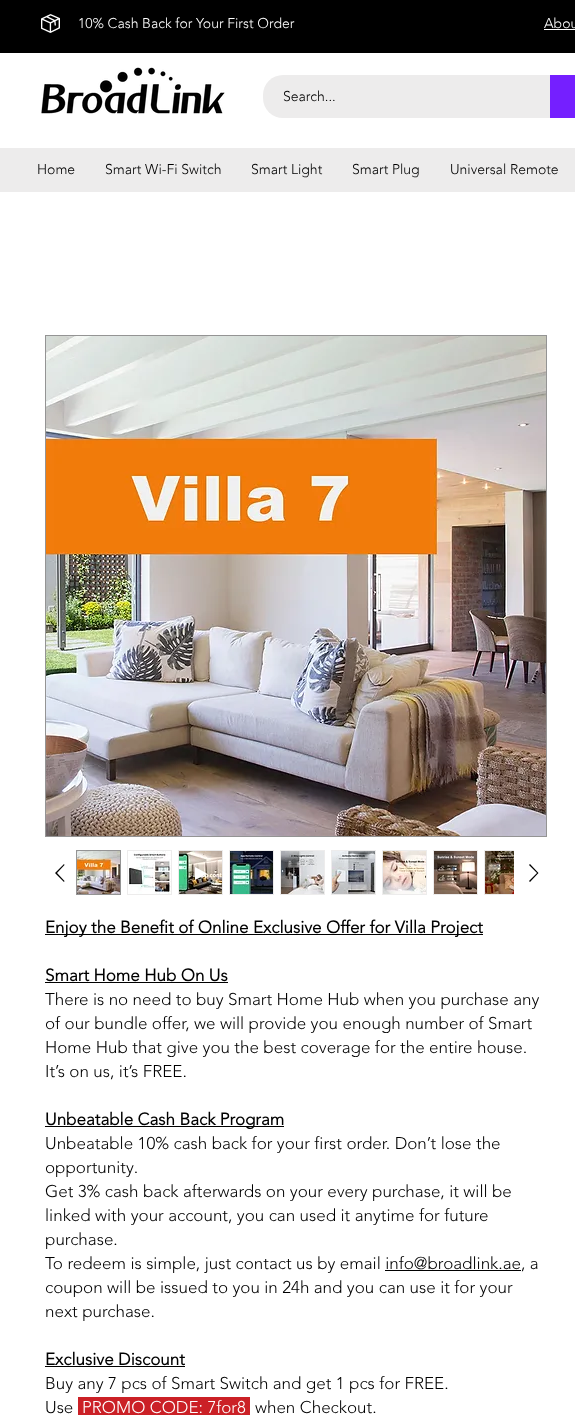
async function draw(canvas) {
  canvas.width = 575
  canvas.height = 1415
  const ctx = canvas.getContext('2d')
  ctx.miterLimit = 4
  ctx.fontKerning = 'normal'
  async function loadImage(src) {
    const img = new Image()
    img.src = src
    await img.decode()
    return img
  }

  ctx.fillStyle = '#fff'
  ctx.fillRect(0, 0, 575, 1415)
  ctx.fillStyle = '#000'
  ctx.fillRect(0, 0, 575, 53)
  ctx.drawImage(await loadImage('image0.png'), 41, 14, 19, 19)
  ctx.font = '300 14px "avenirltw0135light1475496"'
  ctx.fillStyle = '#fff'
  ctx.fillText('10% Cash Back for Your First Order', 78, 28)
  ctx.fillText('Abou', 544, 28)
  ctx.fillRect(544, 29, 31, 1)
  ctx.drawImage(await loadImage('image1.png'), 41, 67, 184, 47)
  ctx.fillStyle = '#edecec'
  ctx.beginPath()
  ctx.roundRect(263, 75, 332, 43, 20)
  ctx.fill()
  ctx.fillStyle = '#000'
  ctx.fillText('Search...', 283, 101)
  ctx.fillStyle = '#751fff'
  ctx.fillRect(550, 75, 25, 43)
  ctx.fillStyle = '#edecec'
  ctx.fillRect(0, 148, 575, 44)
  ctx.fillStyle = '#000'
  ctx.fillText('Home', 37, 174)
  ctx.fillText('Smart Wi-Fi Switch', 105, 174)
  ctx.fillText('Smart Light', 251, 174)
  ctx.fillText('Smart Plug', 352, 174)
  ctx.fillText('Universal Remote', 450, 174)
  ctx.strokeStyle = '#949494'
  ctx.strokeRect(45.5, 335.5, 501, 501)
  ctx.drawImage(await loadImage('image2.png'), 46, 336, 500, 500)
  ctx.beginPath()
  ctx.moveTo(64, 864)
  ctx.lineTo(64.5, 865)
  ctx.lineTo(57, 873)
  ctx.lineTo(64.5, 881)
  ctx.lineTo(64, 882)
  ctx.lineTo(55, 873)
  ctx.closePath()
  ctx.fill('evenodd')
  ctx.strokeRect(76.5, 850.5, 44, 44)
  ctx.drawImage(await loadImage('image3.png'), 77, 851, 43, 43)
  ctx.strokeStyle = '#edecec'
  ctx.strokeRect(127.5, 850.5, 44, 44)
  ctx.drawImage(await loadImage('image4.png'), 129, 851, 42, 43)
  ctx.strokeRect(178.5, 850.5, 44, 44)
  ctx.drawImage(await loadImage('image5.png'), 179, 851, 43, 43)
  ctx.fillStyle = '#fff'
  ctx.beginPath()
  ctx.moveTo(195, 867)
  ctx.lineTo(195, 880)
  ctx.lineTo(207, 873.5)
  ctx.closePath()
  ctx.fill()
  ctx.strokeRect(229.5, 850.5, 44, 44)
  ctx.drawImage(await loadImage('image6.png'), 230, 851, 43, 43)
  ctx.strokeRect(280.5, 850.5, 44, 44)
  ctx.drawImage(await loadImage('image7.png'), 281, 851, 43, 43)
  ctx.strokeRect(331.5, 850.5, 44, 44)
  ctx.drawImage(await loadImage('image8.png'), 332, 851, 43, 43)
  ctx.strokeRect(382.5, 850.5, 44, 44)
  ctx.drawImage(await loadImage('image9.png'), 383, 851, 43, 43)
  ctx.strokeRect(433.5, 850.5, 44, 44)
  ctx.drawImage(await loadImage('image10.png'), 434, 851, 43, 43)
  ctx.save()
  ctx.beginPath()
  ctx.rect(72, 846, 442, 53)
  ctx.clip()
  ctx.strokeRect(484.5, 850.5, 44, 44)
  ctx.restore()
  ctx.drawImage(await loadImage('image11.png'), 485, 851, 29, 43)
  ctx.fillStyle = '#000'
  ctx.beginPath()
  ctx.moveTo(530, 864)
  ctx.lineTo(538.5, 873)
  ctx.lineTo(530, 882)
  ctx.lineTo(529, 881)
  ctx.lineTo(537, 873)
  ctx.lineTo(529, 865)
  ctx.closePath()
  ctx.fill('evenodd')
  ctx.fillRect(45, 934, 438, 1)
  ctx.font = 'bold 17px "avenirltw0135light1475496"'
  ctx.fillText('Enjoy the Benefit of Online Exclusive Offer for Villa Project', 45, 933)
  ctx.fillText('Smart Home Hub On Us', 45, 981)
  ctx.fillRect(45, 982, 183, 1)
  ctx.font = '300 17px "avenirltw0135light1475496"'
  ctx.fillText('There is no need to buy Smart Home Hub when you purchase any', 45, 1005)
  ctx.fillText('of our bundle offer, we will provide you enough number of Smart', 45, 1029)
  ctx.fillText('Home Hub that give you the best coverage for the entire house.', 45, 1053)
  ctx.fillText('It’s on us, it’s FREE.', 45, 1077)
  ctx.fillRect(45, 1126, 239, 1)
  ctx.font = 'bold 17px "avenirltw0135light1475496"'
  ctx.fillText('Unbeatable Cash Back Program', 45, 1125)
  ctx.font = '300 17px "avenirltw0135light1475496"'
  ctx.fillText('Unbeatable 10% cash back for your first order. Don’t lose the', 45, 1149)
  ctx.fillText('opportunity.', 45, 1173)
  ctx.fillText('Get 3% cash back afterwards on your every purchase, it will be', 45, 1197)
  ctx.fillText('linked with your account, you can used it anytime for future', 45, 1221)
  ctx.fillText('purchase.', 45, 1245)
  ctx.fillText('To redeem is simple, just contact us by email info@broadlink.ae, a', 45, 1269)
  ctx.fillRect(385, 1270, 136, 1)
  ctx.fillText('coupon will be issued to you in 24h and you can use it for your', 45, 1293)
  ctx.fillText('next purchase.', 45, 1317)
  ctx.font = 'bold 17px "avenirltw0135light1475496"'
  ctx.fillText('Exclusive Discount', 45, 1365)
  ctx.fillRect(45, 1366, 140, 1)
  ctx.font = '300 17px "avenirltw0135light1475496"'
  ctx.fillText('Buy any 7 pcs of Smart Switch and get 1 pcs for FREE.', 45, 1389)
  ctx.fillText('Use', 45, 1413)
  ctx.fillStyle = '#cb2026'
  ctx.fillRect(78, 1397, 172, 18)
  ctx.fillStyle = '#fff'
  ctx.fillText('PROMO CODE: 7for8', 82, 1413)
  ctx.fillStyle = '#000'
  ctx.fillText('when Checkout.', 255, 1413)
}

draw(document.querySelector('canvas'))
